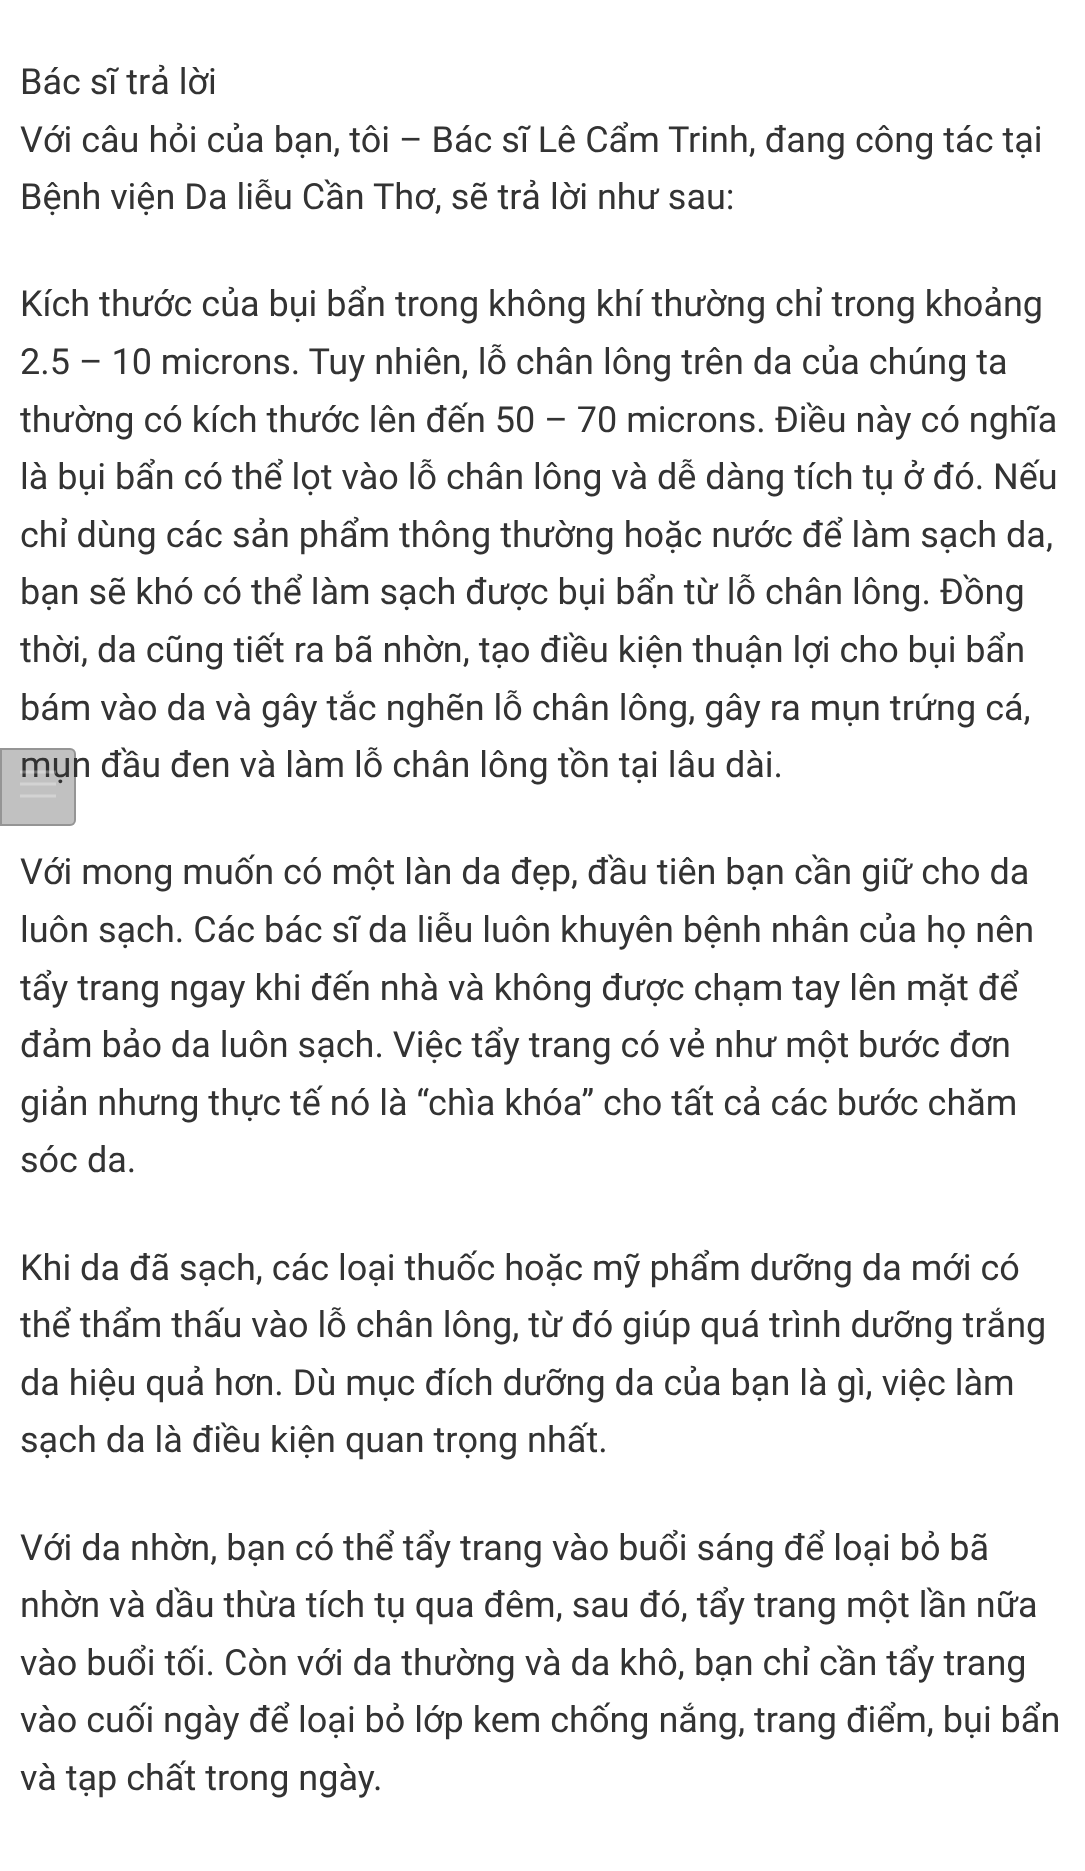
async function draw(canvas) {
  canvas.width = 1085
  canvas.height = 1871
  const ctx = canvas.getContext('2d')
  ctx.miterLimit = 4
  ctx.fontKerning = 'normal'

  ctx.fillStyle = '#fff'
  ctx.fillRect(0, 0, 1085, 1871)
  ctx.font = '36px Roboto'
  ctx.fillStyle = '#333'
  ctx.fillText('Bác sĩ trả lời', 20, 94)
  ctx.fillText('Với câu hỏi của bạn, tôi – Bác sĩ Lê Cẩm Trinh, đang công tác tại', 20, 152)
  ctx.fillText('Bệnh viện Da liễu Cần Thơ, sẽ trả lời như sau:', 20, 209)
  ctx.fillText('Kích thước của bụi bẩn trong không khí thường chỉ trong khoảng', 20, 316)
  ctx.fillText('2.5 – 10 microns. Tuy nhiên, lỗ chân lông trên da của chúng ta', 20, 374)
  ctx.fillText('thường có kích thước lên đến 50 – 70 microns. Điều này có nghĩa', 20, 432)
  ctx.fillText('là bụi bẩn có thể lọt vào lỗ chân lông và dễ dàng tích tụ ở đó. Nếu', 20, 489)
  ctx.fillText('chỉ dùng các sản phẩm thông thường hoặc nước để làm sạch da,', 20, 547)
  ctx.fillText('bạn sẽ khó có thể làm sạch được bụi bẩn từ lỗ chân lông. Đồng', 20, 604)
  ctx.fillText('thời, da cũng tiết ra bã nhờn, tạo điều kiện thuận lợi cho bụi bẩn', 20, 662)
  ctx.fillText('bám vào da và gây tắc nghẽn lỗ chân lông, gây ra mụn trứng cá,', 20, 720)
  ctx.fillText('mụn đầu đen và làm lỗ chân lông tồn tại lâu dài.', 20, 777)
  ctx.fillText('Với mong muốn có một làn da đẹp, đầu tiên bạn cần giữ cho da', 20, 884)
  ctx.fillText('luôn sạch. Các bác sĩ da liễu luôn khuyên bệnh nhân của họ nên', 20, 942)
  ctx.fillText('tẩy trang ngay khi đến nhà và không được chạm tay lên mặt để', 20, 1000)
  ctx.fillText('đảm bảo da luôn sạch. Việc tẩy trang có vẻ như một bước đơn', 20, 1057)
  ctx.fillText('giản nhưng thực tế nó là “chìa khóa” cho tất cả các bước chăm', 20, 1115)
  ctx.fillText('sóc da.', 20, 1172)
  ctx.fillText('Khi da đã sạch, các loại thuốc hoặc mỹ phẩm dưỡng da mới có', 20, 1280)
  ctx.fillText('thể thẩm thấu vào lỗ chân lông, từ đó giúp quá trình dưỡng trắng', 20, 1337)
  ctx.fillText('da hiệu quả hơn. Dù mục đích dưỡng da của bạn là gì, việc làm', 20, 1395)
  ctx.fillText('sạch da là điều kiện quan trọng nhất.', 20, 1452)
  ctx.fillText('Với da nhờn, bạn có thể tẩy trang vào buổi sáng để loại bỏ bã', 20, 1560)
  ctx.fillText('nhờn và dầu thừa tích tụ qua đêm, sau đó, tẩy trang một lần nữa', 20, 1617)
  ctx.fillText('vào buổi tối. Còn với da thường và da khô, bạn chỉ cần tẩy trang', 20, 1675)
  ctx.fillText('vào cuối ngày để loại bỏ lớp kem chống nắng, trang điểm, bụi bẩn', 20, 1732)
  ctx.fillText('và tạp chất trong ngày.', 20, 1790)
  ctx.fillStyle = '#3333334d'
  ctx.beginPath()
  ctx.roundRect(0, 748, 76, 78, [0, 6, 6, 0])
  ctx.fill()
  ctx.beginPath()
  ctx.roundRect(1, 749, 74, 76, [0, 5, 5, 0])
  ctx.strokeStyle = '#3333334d'
  ctx.lineWidth = 2
  ctx.stroke()
  ctx.fillStyle = '#ffffff4d'
  ctx.beginPath()
  ctx.moveTo(20, 770.5)
  ctx.lineTo(20, 773.5)
  ctx.lineTo(56, 773.5)
  ctx.lineTo(56, 770.5)
  ctx.closePath()
  ctx.moveTo(20, 782.5)
  ctx.lineTo(20, 785.5)
  ctx.lineTo(56, 785.5)
  ctx.lineTo(56, 782.5)
  ctx.closePath()
  ctx.moveTo(20, 794.5)
  ctx.lineTo(20, 797.5)
  ctx.lineTo(56, 797.5)
  ctx.lineTo(56, 794.5)
  ctx.closePath()
  ctx.fill()
}

draw(document.querySelector('canvas'))
